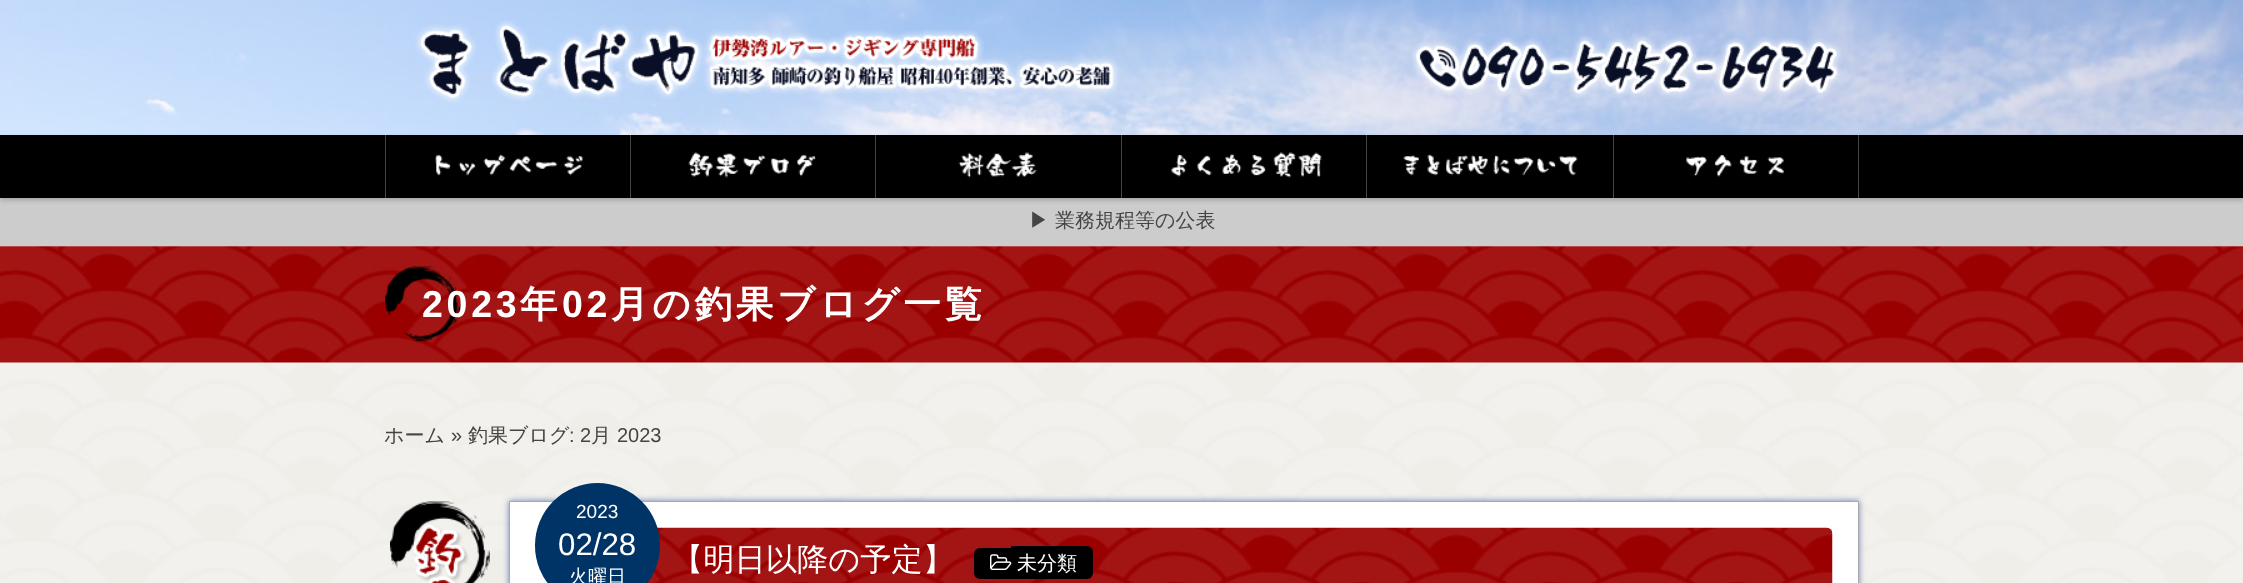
async function draw(canvas) {
  canvas.width = 2243
  canvas.height = 583
  const ctx = canvas.getContext('2d')
  ctx.miterLimit = 4
  ctx.fontKerning = 'normal'
  async function loadImage(src) {
    const img = new Image()
    img.src = src
    await img.decode()
    return img
  }

  ctx.fillStyle = '#fff'
  ctx.fillRect(0, 0, 2243, 583)
  ctx.drawImage(await loadImage('image0.png'), 0, 246, 2243, 337)
  ctx.drawImage(await loadImage('image1.png'), 0, 0, 2243, 135)
  ctx.drawImage(await loadImage('image2.png'), 415, 20, 704, 83)
  ctx.drawImage(await loadImage('image3.png'), 1411, 35, 431, 63)
  ctx.fillStyle = '#ccc'
  ctx.fillRect(0, 198, 2243, 48)
  ctx.fillStyle = '#00000033'
  ctx.filter = 'blur(2.5px)'
  ctx.beginPath()
  ctx.rect(0, 138, 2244, 62)
  ctx.fill()
  ctx.filter = 'none'
  ctx.fillStyle = '#000'
  ctx.fillRect(0, 135, 2243, 63)
  ctx.fillStyle = '#444'
  ctx.fillRect(385, 135, 1, 63)
  ctx.fillRect(630, 135, 1, 63)
  ctx.drawImage(await loadImage('image4.png'), 435, 154, 148, 22)
  ctx.fillRect(875, 135, 1, 63)
  ctx.drawImage(await loadImage('image5.png'), 688, 152, 128, 26)
  ctx.fillRect(1121, 135, 1, 63)
  ctx.drawImage(await loadImage('image6.png'), 958, 152, 79, 26)
  ctx.fillRect(1366, 135, 1, 63)
  ctx.drawImage(await loadImage('image7.png'), 1171, 152, 151, 26)
  ctx.fillRect(1613, 135, 1, 63)
  ctx.drawImage(await loadImage('image8.png'), 1403, 154, 175, 22)
  ctx.fillRect(1858, 135, 1, 63)
  ctx.drawImage(await loadImage('image9.png'), 1686, 154, 98, 23)
  ctx.font = '500 20px WenQuanYi Zen Hei'
  ctx.fillText('▶ 業務規程等の公表', 1029, 227)
  ctx.drawImage(await loadImage('image10.png'), 0, 246, 2243, 117)
  ctx.drawImage(await loadImage('image11.png'), 385, 266, 77, 76)
  ctx.letterSpacing = '3.75px'
  ctx.font = 'bold 37.5px Liberation Sans'
  ctx.fillStyle = '#fff'
  ctx.fillText('2023', 422, 317)
  ctx.font = 'bold 37.5px WenQuanYi Zen Hei'
  ctx.fillText('年', 520, 317)
  ctx.font = 'bold 37.5px Liberation Sans'
  ctx.fillText('02', 562, 317)
  ctx.font = 'bold 37.5px WenQuanYi Zen Hei'
  ctx.fillText('月の釣果ブログ一覧', 611, 317)
  ctx.letterSpacing = '0px'
  ctx.font = '500 20px WenQuanYi Zen Hei'
  ctx.fillStyle = '#444'
  ctx.fillText('ホーム', 384, 442)
  ctx.font = '20px Liberation Sans'
  ctx.fillText('»', 451, 442)
  ctx.font = '500 20px WenQuanYi Zen Hei'
  ctx.fillText('釣果ブログ', 468, 442)
  ctx.font = '20px Liberation Sans'
  ctx.fillText(': 2', 569, 442)
  ctx.font = '500 20px WenQuanYi Zen Hei'
  ctx.fillText('月', 591, 442)
  ctx.font = '20px Liberation Sans'
  ctx.fillText('2023', 617, 442)
  ctx.drawImage(await loadImage('image12.png'), 390, 501, 100, 82)
  ctx.fillStyle = '#4963a8cc'
  ctx.filter = 'blur(3px)'
  ctx.beginPath()
  ctx.rect(509, 501, 1350, 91)
  ctx.fill()
  ctx.filter = 'none'
  ctx.fillStyle = '#fff'
  ctx.beginPath()
  ctx.rect(509.5, 501.5, 1349, 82)
  ctx.fill()
  ctx.strokeStyle = '#a9a9a9'
  ctx.stroke()
  ctx.drawImage(await loadImage('image13.png'), 647, 527, 1186, 56)
  ctx.fillStyle = '#036'
  ctx.beginPath()
  ctx.arc(597.5, 545.5, 62.5, 0, 2 * Math.PI)
  ctx.fill()
  ctx.font = '19px Liberation Sans'
  ctx.fillStyle = '#fff'
  ctx.fillText('2023', 576, 518)
  ctx.font = '31.25px Liberation Sans'
  ctx.fillText('02/28', 558, 555)
  ctx.font = '500 19px WenQuanYi Zen Hei'
  ctx.fillText('火曜日', 569, 583)
  ctx.font = '500 31.25px WenQuanYi Zen Hei'
  ctx.fillText('【明日以降の予定】', 672, 570)
  ctx.fillStyle = '#000'
  ctx.beginPath()
  ctx.roundRect(974, 548, 37, 31, [6, 0, 0, 6])
  ctx.fill()
  ctx.fillRect(1011, 546, 7, 33)
  ctx.beginPath()
  ctx.roundRect(1018, 546, 75, 33, [0, 6, 6, 0])
  ctx.fill()
  ctx.drawImage(await loadImage('image14.png'), 990, 554, 22, 16)
  ctx.font = '500 20px WenQuanYi Zen Hei'
  ctx.fillStyle = '#fff'
  ctx.fillText('未分類', 1017, 570)
}

draw(document.querySelector('canvas'))
